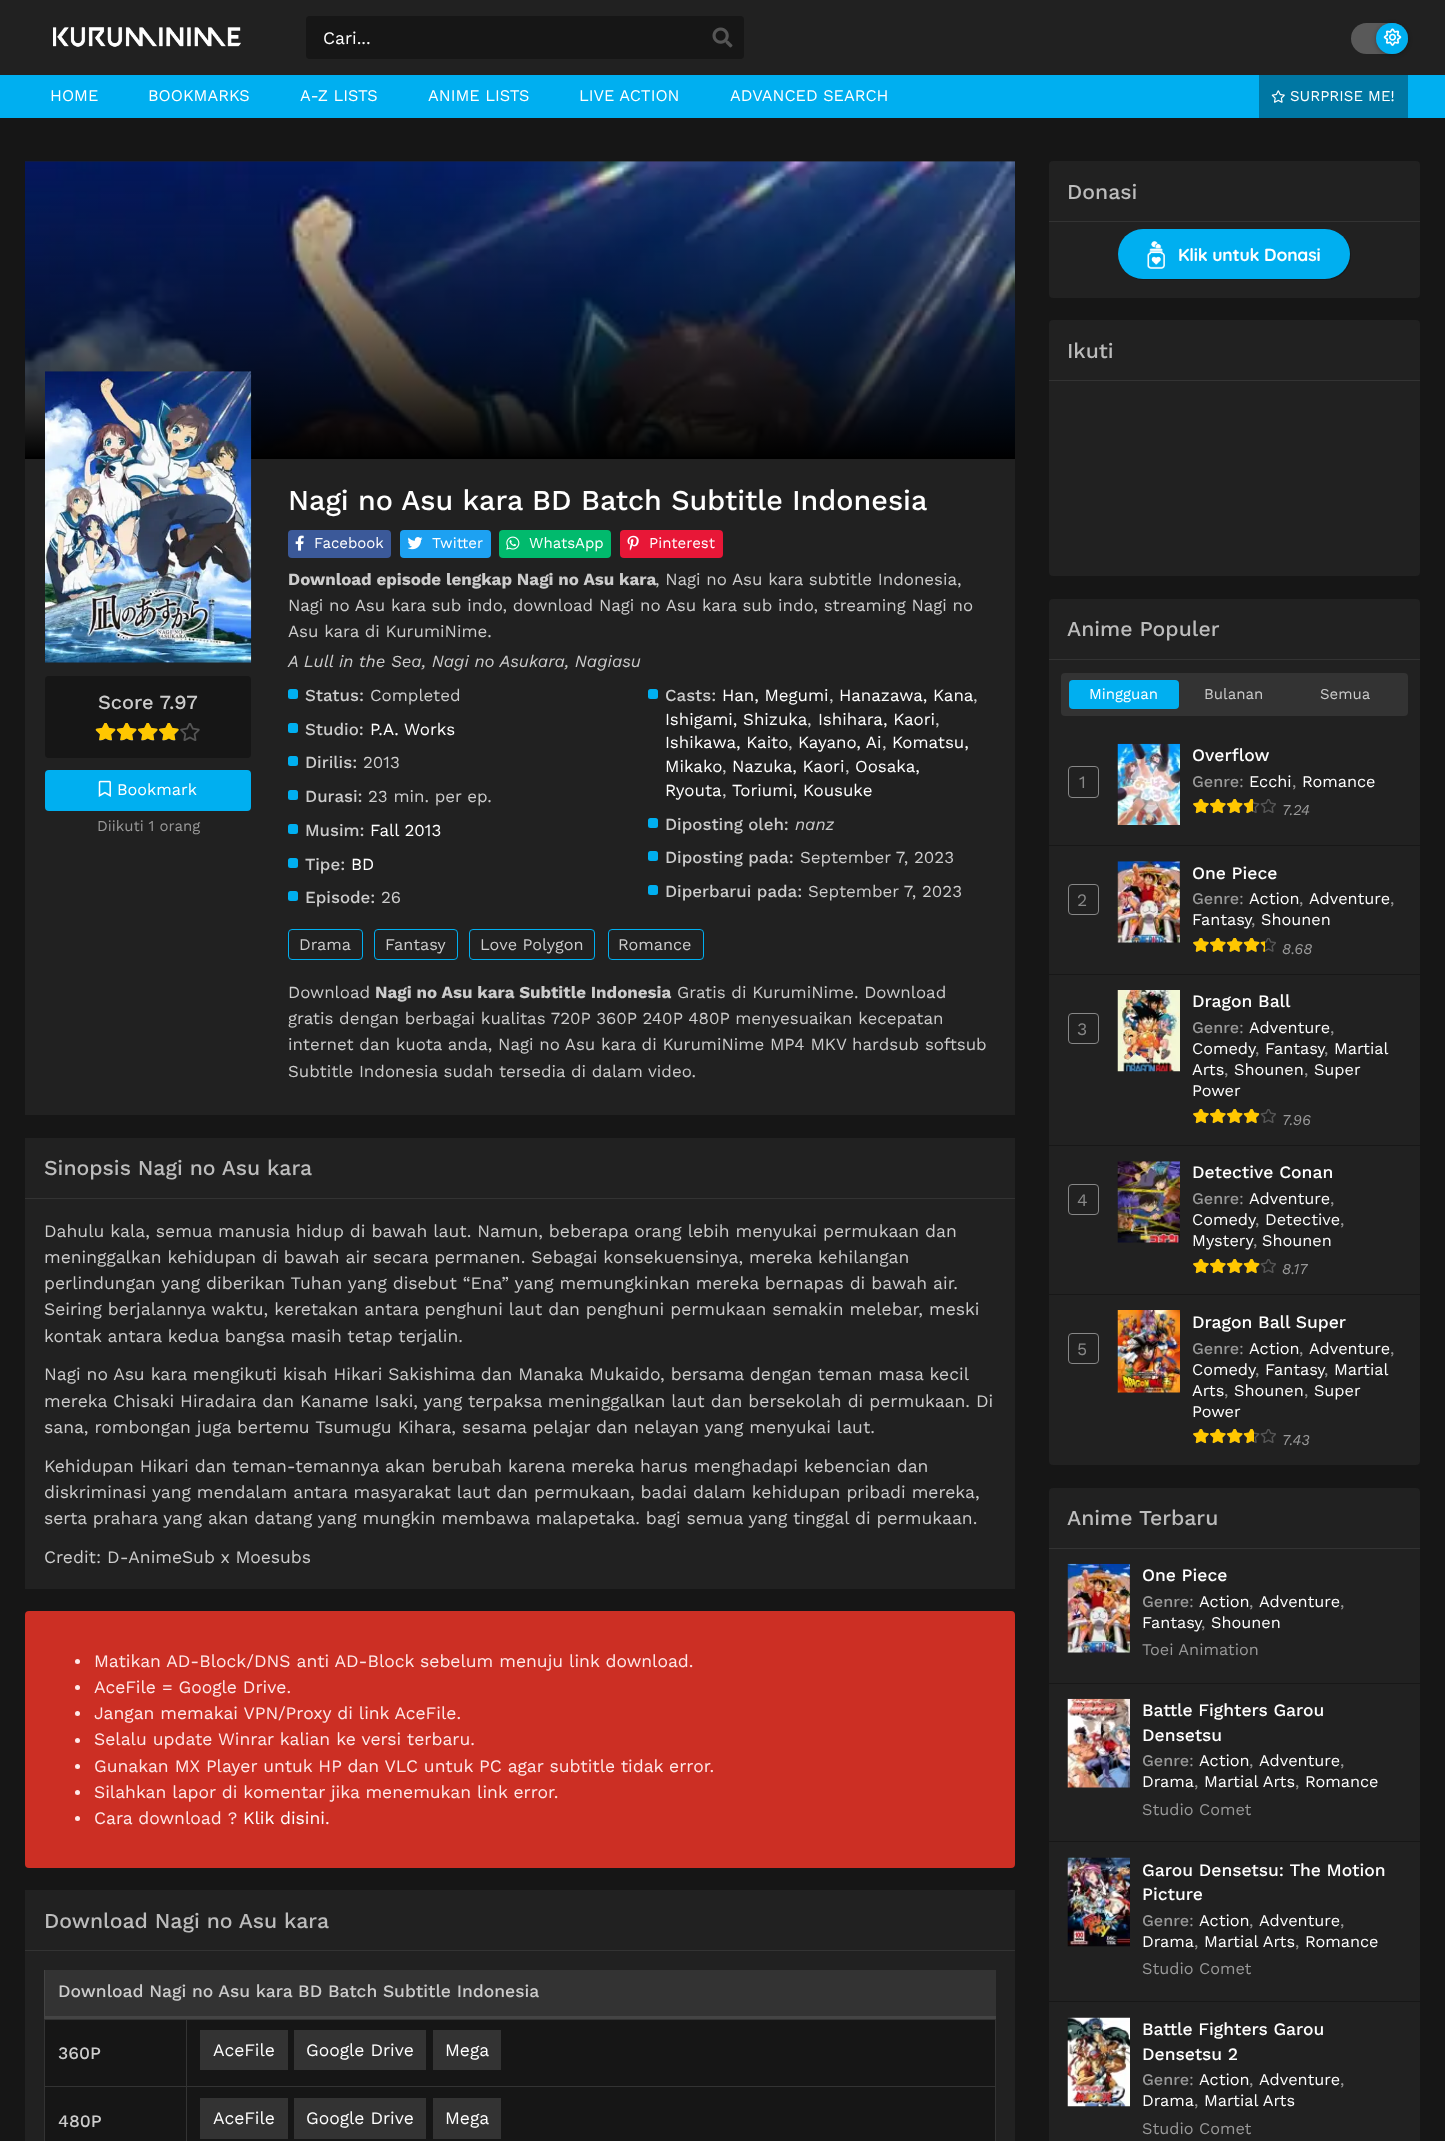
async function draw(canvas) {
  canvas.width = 1445
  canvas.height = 2141
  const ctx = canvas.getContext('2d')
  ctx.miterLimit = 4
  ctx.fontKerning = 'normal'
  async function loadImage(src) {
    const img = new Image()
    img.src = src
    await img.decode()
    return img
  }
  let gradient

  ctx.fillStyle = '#161616'
  ctx.fillRect(0, 0, 1445, 2141)
  ctx.fillStyle = '#212121'
  ctx.fillRect(0, 0, 1445, 75)
  ctx.drawImage(await loadImage('image0.png'), 53, 27, 188, 20)
  ctx.fillStyle = '#161616'
  ctx.beginPath()
  ctx.roundRect(306, 16, 438, 43, 4)
  ctx.fill()
  ctx.font = '17.5px Work Sans'
  ctx.fillStyle = '#fff'
  ctx.fillText('Cari...', 323, 44)
  ctx.drawImage(await loadImage('image1.png'), 712, 27, 21, 21)
  ctx.fillStyle = '#595959'
  ctx.beginPath()
  ctx.roundRect(1351, 23, 57, 31, 15.5)
  ctx.fill()
  ctx.fillStyle = '#0000004d'
  ctx.filter = 'blur(2px)'
  ctx.beginPath()
  ctx.roundRect(1376, 24, 32, 31, 15.5)
  ctx.fill()
  ctx.filter = 'none'
  ctx.fillStyle = '#00aff0'
  ctx.beginPath()
  ctx.roundRect(1376, 23, 32, 31, 15.5)
  ctx.fill()
  ctx.drawImage(await loadImage('image2.png'), 1383, 28, 19, 18)
  ctx.fillRect(0, 75, 1445, 43)
  ctx.font = '16.25px Work Sans'
  ctx.fillStyle = '#fff'
  ctx.fillText('HOME', 50, 101)
  ctx.fillText('BOOKMARKS', 148, 101)
  ctx.fillText('A-Z LISTS', 300, 101)
  ctx.fillText('ANIME LISTS', 428, 101)
  ctx.fillText('LIVE ACTION', 579, 101)
  ctx.fillText('ADVANCED SEARCH', 730, 101)
  ctx.fillStyle = '#0077a3'
  ctx.fillRect(1259, 75, 149, 43)
  ctx.drawImage(await loadImage('image3.png'), 1271, 90, 14, 13)
  ctx.font = '15px Work Sans'
  ctx.fillStyle = '#fff'
  ctx.fillText('SURPRISE ME!', 1290, 101)
  ctx.fillStyle = '#212121'
  ctx.fillRect(25, 161, 990, 954)
  ctx.drawImage(await loadImage('image4.png'), 25, 161, 990, 296)
  gradient = ctx.createLinearGradient(520, 459, 520, 161)
  gradient.addColorStop(0, '#000')
  gradient.addColorStop(1, '#00000000')
  ctx.fillStyle = gradient
  ctx.fillRect(25, 167, 990, 292)
  ctx.drawImage(await loadImage('image5.png'), 45, 371, 207, 292)
  ctx.fillStyle = '#161616'
  ctx.beginPath()
  ctx.roundRect(45, 676, 206, 82, 4)
  ctx.fill()
  ctx.font = '500 20px Work Sans'
  ctx.fillStyle = '#ccc'
  ctx.fillText('Score 7.97', 98, 709)
  ctx.drawImage(await loadImage('image6.png'), 95, 723, 105, 18)
  ctx.drawImage(await loadImage('image7.png'), 95, 723, 84, 17)
  ctx.fillStyle = '#00aff0'
  ctx.beginPath()
  ctx.roundRect(45, 770, 206, 41, 4)
  ctx.fill()
  ctx.drawImage(await loadImage('image8.png'), 98, 780, 13, 17)
  ctx.font = '16.25px Work Sans'
  ctx.fillStyle = '#fff'
  ctx.fillText('Bookmark', 117, 795)
  ctx.font = '15px Work Sans'
  ctx.fillStyle = '#999'
  ctx.fillText('Diikuti 1 orang', 97, 831)
  ctx.font = '500 28.7px Work Sans'
  ctx.fillStyle = '#fff'
  ctx.fillText('Nagi no Asu kara BD Batch Subtitle Indonesia', 288, 510)
  ctx.fillStyle = '#3b5999'
  ctx.beginPath()
  ctx.roundRect(288, 530, 103, 28, 4)
  ctx.fill()
  ctx.drawImage(await loadImage('image9.png'), 295, 535, 9, 16)
  ctx.font = '15px Work Sans'
  ctx.fillStyle = '#fff'
  ctx.fillText('Facebook', 314, 548)
  ctx.fillStyle = '#1da1f2'
  ctx.beginPath()
  ctx.roundRect(400, 530, 91, 28, 4)
  ctx.fill()
  ctx.drawImage(await loadImage('image10.png'), 407, 537, 16, 13)
  ctx.fillStyle = '#fff'
  ctx.fillText('Twitter', 432, 548)
  ctx.fillStyle = '#01ba6d'
  ctx.beginPath()
  ctx.roundRect(499, 530, 112, 28, 4)
  ctx.fill()
  ctx.drawImage(await loadImage('image11.png'), 506, 536, 14, 14)
  ctx.fillStyle = '#fff'
  ctx.fillText('WhatsApp', 529, 548)
  ctx.fillStyle = '#e81737'
  ctx.beginPath()
  ctx.roundRect(620, 530, 103, 28, 4)
  ctx.fill()
  ctx.drawImage(await loadImage('image12.png'), 627, 535, 12, 16)
  ctx.fillStyle = '#fff'
  ctx.fillText('Pinterest', 649, 548)
  ctx.font = 'bold 16.9px Work Sans'
  ctx.fillStyle = '#ccc'
  ctx.fillText('Download episode lengkap Nagi no Asu kara', 288, 585)
  ctx.font = '16.9px Work Sans'
  ctx.fillText(', Nagi no Asu kara subtitle Indonesia,', 655, 585)
  ctx.fillText('Nagi no Asu kara sub indo, download Nagi no Asu kara sub indo, streaming Nagi no', 288, 611)
  ctx.fillText('Asu kara di KurumiNime.', 288, 637)
  ctx.font = 'italic 16.9px Work Sans'
  ctx.fillText('A Lull in the Sea, Nagi no Asukara, Nagiasu', 288, 667)
  ctx.fillStyle = '#00aff0'
  ctx.beginPath()
  ctx.roundRect(288, 689, 10, 10, 2.5)
  ctx.fill()
  ctx.font = '500 16.9px Work Sans'
  ctx.fillStyle = '#ccc'
  ctx.fillText('Status:', 305, 701)
  ctx.font = '16.9px Work Sans'
  ctx.fillText('Completed', 370, 701)
  ctx.fillStyle = '#00aff0'
  ctx.beginPath()
  ctx.roundRect(648, 689, 10, 10, 2.5)
  ctx.fill()
  ctx.font = '500 16.9px Work Sans'
  ctx.fillStyle = '#ccc'
  ctx.fillText('Casts:', 665, 701)
  ctx.font = '16.9px Work Sans'
  ctx.fillStyle = '#fff'
  ctx.fillText('Han, Megumi', 722, 701)
  ctx.fillStyle = '#ccc'
  ctx.fillText(',', 829, 701)
  ctx.fillStyle = '#fff'
  ctx.fillText('Hanazawa, Kana', 839, 701)
  ctx.fillStyle = '#ccc'
  ctx.fillText(',', 973, 701)
  ctx.fillStyle = '#fff'
  ctx.fillText('Ishigami, Shizuka', 665, 725)
  ctx.fillStyle = '#ccc'
  ctx.fillText(',', 807, 725)
  ctx.fillStyle = '#fff'
  ctx.fillText('Ishihara, Kaori', 818, 725)
  ctx.fillStyle = '#ccc'
  ctx.fillText(',', 935, 725)
  ctx.fillStyle = '#fff'
  ctx.fillText('Ishikawa, Kaito', 665, 748)
  ctx.fillStyle = '#ccc'
  ctx.fillText(',', 788, 748)
  ctx.fillStyle = '#fff'
  ctx.fillText('Kayano, Ai', 798, 748)
  ctx.fillStyle = '#ccc'
  ctx.fillText(',', 882, 748)
  ctx.fillStyle = '#fff'
  ctx.fillText('Komatsu,', 892, 748)
  ctx.fillText('Mikako', 665, 772)
  ctx.fillStyle = '#ccc'
  ctx.fillText(',', 722, 772)
  ctx.fillStyle = '#fff'
  ctx.fillText('Nazuka, Kaori', 732, 772)
  ctx.fillStyle = '#ccc'
  ctx.fillText(',', 845, 772)
  ctx.fillStyle = '#fff'
  ctx.fillText('Oosaka,', 855, 772)
  ctx.fillText('Ryouta', 665, 796)
  ctx.fillStyle = '#ccc'
  ctx.fillText(',', 722, 796)
  ctx.fillStyle = '#fff'
  ctx.fillText('Toriumi, Kousuke', 732, 796)
  ctx.fillStyle = '#00aff0'
  ctx.beginPath()
  ctx.roundRect(288, 723, 10, 10, 2.5)
  ctx.fill()
  ctx.font = '500 16.9px Work Sans'
  ctx.fillStyle = '#ccc'
  ctx.fillText('Studio:', 305, 735)
  ctx.font = '16.9px Work Sans'
  ctx.fillStyle = '#fff'
  ctx.fillText('P.A. Works', 370, 735)
  ctx.fillStyle = '#00aff0'
  ctx.beginPath()
  ctx.roundRect(288, 756, 10, 10, 2.5)
  ctx.fill()
  ctx.font = '500 16.9px Work Sans'
  ctx.fillStyle = '#ccc'
  ctx.fillText('Dirilis:', 305, 768)
  ctx.font = '16.9px Work Sans'
  ctx.fillText('2013', 363, 768)
  ctx.fillStyle = '#00aff0'
  ctx.beginPath()
  ctx.roundRect(288, 790, 10, 10, 2.5)
  ctx.fill()
  ctx.font = '500 16.9px Work Sans'
  ctx.fillStyle = '#ccc'
  ctx.fillText('Durasi:', 305, 802)
  ctx.font = '16.9px Work Sans'
  ctx.fillText('23 min. per ep.', 368, 802)
  ctx.fillStyle = '#00aff0'
  ctx.beginPath()
  ctx.roundRect(288, 824, 10, 10, 2.5)
  ctx.fill()
  ctx.font = '500 16.9px Work Sans'
  ctx.fillStyle = '#ccc'
  ctx.fillText('Musim:', 305, 836)
  ctx.font = '16.9px Work Sans'
  ctx.fillStyle = '#fff'
  ctx.fillText('Fall 2013', 370, 836)
  ctx.fillStyle = '#00aff0'
  ctx.beginPath()
  ctx.roundRect(648, 818, 10, 10, 2.5)
  ctx.fill()
  ctx.font = '500 16.9px Work Sans'
  ctx.fillStyle = '#ccc'
  ctx.fillText('Diposting oleh:', 665, 830)
  ctx.font = 'italic 16.9px Work Sans'
  ctx.fillText('nanz', 795, 830)
  ctx.fillStyle = '#00aff0'
  ctx.beginPath()
  ctx.roundRect(288, 858, 10, 10, 2.5)
  ctx.fill()
  ctx.font = '500 16.9px Work Sans'
  ctx.fillStyle = '#ccc'
  ctx.fillText('Tipe:', 305, 870)
  ctx.font = '16.9px Work Sans'
  ctx.fillStyle = '#fff'
  ctx.fillText('BD', 351, 870)
  ctx.fillStyle = '#00aff0'
  ctx.beginPath()
  ctx.roundRect(648, 851, 10, 10, 2.5)
  ctx.fill()
  ctx.font = '500 16.9px Work Sans'
  ctx.fillStyle = '#ccc'
  ctx.fillText('Diposting pada:', 665, 863)
  ctx.font = '16.9px Work Sans'
  ctx.fillText('September 7, 2023', 800, 863)
  ctx.fillStyle = '#00aff0'
  ctx.beginPath()
  ctx.roundRect(288, 891, 10, 10, 2.5)
  ctx.fill()
  ctx.font = '500 16.9px Work Sans'
  ctx.fillStyle = '#ccc'
  ctx.fillText('Episode:', 305, 903)
  ctx.font = '16.9px Work Sans'
  ctx.fillText('26', 381, 903)
  ctx.fillStyle = '#00aff0'
  ctx.beginPath()
  ctx.roundRect(648, 885, 10, 10, 2.5)
  ctx.fill()
  ctx.font = '500 16.9px Work Sans'
  ctx.fillStyle = '#ccc'
  ctx.fillText('Diperbarui pada:', 665, 897)
  ctx.font = '16.9px Work Sans'
  ctx.fillText('September 7, 2023', 808, 897)
  ctx.beginPath()
  ctx.roundRect(288.5, 929.5, 74, 30, 3.5)
  ctx.strokeStyle = '#00aff0'
  ctx.stroke()
  ctx.font = '16.25px Work Sans'
  ctx.fillText('Drama', 299, 950)
  ctx.beginPath()
  ctx.roundRect(374.5, 929.5, 83, 30, 3.5)
  ctx.stroke()
  ctx.fillText('Fantasy', 385, 950)
  ctx.beginPath()
  ctx.roundRect(469.5, 929.5, 125, 30, 3.5)
  ctx.stroke()
  ctx.fillText('Love Polygon', 480, 950)
  ctx.beginPath()
  ctx.roundRect(608.5, 929.5, 95, 30, 3.5)
  ctx.stroke()
  ctx.fillText('Romance', 618, 950)
  ctx.font = '16.9px Work Sans'
  ctx.fillText('Download', 288, 998)
  ctx.font = 'bold 16.9px Work Sans'
  ctx.fillText('Nagi no Asu kara Subtitle Indonesia', 375, 998)
  ctx.font = '16.9px Work Sans'
  ctx.fillText('Gratis di KurumiNime. Download', 677, 998)
  ctx.fillText('gratis dengan berbagai kualitas 720P 360P 240P 480P menyesuaikan kecepatan', 288, 1024)
  ctx.fillText('internet dan kuota anda, Nagi no Asu kara di KurumiNime MP4 MKV hardsub softsub', 288, 1050)
  ctx.fillText('Subtitle Indonesia sudah tersedia di dalam video.', 288, 1077)
  ctx.fillStyle = '#212121'
  ctx.fillRect(25, 1138, 990, 451)
  ctx.fillStyle = '#333'
  ctx.fillRect(25, 1198, 990, 1)
  ctx.font = '500 21.25px Work Sans'
  ctx.fillStyle = '#bcbcbc'
  ctx.fillText('Sinopsis Nagi no Asu kara', 44, 1175)
  ctx.font = '17.5px Work Sans'
  ctx.fillStyle = '#ccc'
  ctx.fillText('Dahulu kala, semua manusia hidup di bawah laut. Namun, beberapa orang lebih menyukai permukaan dan', 44, 1237)
  ctx.fillText('meninggalkan kehidupan di bawah air secara permanen. Sebagai konsekuensinya, mereka kehilangan', 44, 1263)
  ctx.fillText('perlindungan yang diberikan Tuhan yang disebut “Ena” yang memungkinkan mereka bernapas di bawah air.', 44, 1289)
  ctx.fillText('Seiring berjalannya waktu, keretakan antara penghuni laut dan penghuni permukaan semakin melebar, meski', 44, 1315)
  ctx.fillText('kontak antara kedua bangsa masih tetap terjalin.', 44, 1342)
  ctx.fillText('Nagi no Asu kara mengikuti kisah Hikari Sakishima dan Manaka Mukaido, bersama dengan teman masa kecil', 44, 1380)
  ctx.fillText('mereka Chisaki Hiradaira dan Kaname Isaki, yang terpaksa meninggalkan laut dan bersekolah di permukaan. Di', 44, 1407)
  ctx.fillText('sana, rombongan juga bertemu Tsumugu Kihara, sesama pelajar dan nelayan yang menyukai laut.', 44, 1433)
  ctx.fillText('Kehidupan Hikari dan teman-temannya akan berubah karena mereka harus menghadapi kebencian dan', 44, 1472)
  ctx.fillText('diskriminasi yang mendalam antara masyarakat laut dan permukaan, badai dalam kehidupan pribadi mereka,', 44, 1498)
  ctx.fillText('serta prahara yang akan datang yang mungkin membawa malapetaka. bagi semua yang tinggal di permukaan.', 44, 1524)
  ctx.fillText('Credit: D-AnimeSub x Moesubs', 44, 1563)
  ctx.fillStyle = '#cc2f24'
  ctx.beginPath()
  ctx.roundRect(25, 1611, 990, 257, 4)
  ctx.fill()
  ctx.fillStyle = '#ffe9e9'
  ctx.beginPath()
  ctx.arc(77.5, 1661.5, 2.5, 0, 2 * Math.PI)
  ctx.fill()
  ctx.fillText('Matikan AD-Block/DNS anti AD-Block sebelum menuju link download.', 94, 1667)
  ctx.beginPath()
  ctx.arc(77.5, 1687.5, 2.5, 0, 2 * Math.PI)
  ctx.fill()
  ctx.fillText('AceFile = Google Drive.', 94, 1693)
  ctx.beginPath()
  ctx.arc(77.5, 1713.5, 2.5, 0, 2 * Math.PI)
  ctx.fill()
  ctx.fillText('Jangan memakai VPN/Proxy di link AceFile.', 94, 1719)
  ctx.beginPath()
  ctx.arc(77.5, 1740.5, 2.5, 0, 2 * Math.PI)
  ctx.fill()
  ctx.fillText('Selalu update Winrar kalian ke versi terbaru.', 94, 1745)
  ctx.beginPath()
  ctx.arc(77.5, 1766.5, 2.5, 0, 2 * Math.PI)
  ctx.fill()
  ctx.fillText('Gunakan MX Player untuk HP dan VLC untuk PC agar subtitle tidak error.', 94, 1772)
  ctx.beginPath()
  ctx.arc(77.5, 1792.5, 2.5, 0, 2 * Math.PI)
  ctx.fill()
  ctx.fillText('Silahkan lapor di komentar jika menemukan link error.', 94, 1798)
  ctx.beginPath()
  ctx.arc(77.5, 1818.5, 2.5, 0, 2 * Math.PI)
  ctx.fill()
  ctx.fillText('Cara download ?', 94, 1824)
  ctx.fillStyle = '#fff'
  ctx.fillText('Klik disini.', 243, 1824)
  ctx.fillStyle = '#212121'
  ctx.fillRect(25, 1890, 990, 251)
  ctx.fillStyle = '#333'
  ctx.fillRect(25, 1950, 990, 1)
  ctx.font = '500 21.25px Work Sans'
  ctx.fillStyle = '#bcbcbc'
  ctx.fillText('Download Nagi no Asu kara', 44, 1928)
  ctx.fillStyle = '#333'
  ctx.fillRect(45, 1970, 951, 46)
  ctx.fillStyle = '#444'
  ctx.fillRect(44, 2016, 952, 3)
  ctx.fillRect(44, 1970, 1, 49)
  ctx.font = '500 17.5px Work Sans'
  ctx.fillStyle = '#ccc'
  ctx.fillText('Download Nagi no Asu kara BD Batch Subtitle Indonesia', 58, 1997)
  ctx.fillStyle = '#161616'
  ctx.fillRect(45, 2020, 950, 121)
  ctx.fillStyle = '#333'
  ctx.fillRect(44, 2019, 952, 1)
  ctx.fillRect(995, 2019, 1, 122)
  ctx.fillRect(44, 2019, 1, 122)
  ctx.fillStyle = '#ccc'
  ctx.fillText('360P', 58, 2059)
  ctx.fillStyle = '#333'
  ctx.fillRect(200, 2030, 88, 40)
  ctx.font = '17.5px Work Sans'
  ctx.fillStyle = '#fff'
  ctx.fillText('AceFile', 213, 2056)
  ctx.fillStyle = '#333'
  ctx.fillRect(294, 2030, 132, 40)
  ctx.fillStyle = '#fff'
  ctx.fillText('Google Drive', 306, 2056)
  ctx.fillStyle = '#333'
  ctx.fillRect(433, 2030, 68, 40)
  ctx.fillStyle = '#fff'
  ctx.fillText('Mega', 445, 2056)
  ctx.fillStyle = '#333'
  ctx.fillRect(44, 2086, 952, 1)
  ctx.fillRect(186, 2019, 1, 122)
  ctx.font = '500 17.5px Work Sans'
  ctx.fillStyle = '#ccc'
  ctx.fillText('480P', 58, 2127)
  ctx.fillStyle = '#333'
  ctx.fillRect(200, 2098, 88, 41)
  ctx.font = '17.5px Work Sans'
  ctx.fillStyle = '#fff'
  ctx.fillText('AceFile', 213, 2124)
  ctx.fillStyle = '#333'
  ctx.fillRect(294, 2098, 132, 41)
  ctx.fillStyle = '#fff'
  ctx.fillText('Google Drive', 306, 2124)
  ctx.fillStyle = '#333'
  ctx.fillRect(433, 2098, 68, 41)
  ctx.fillStyle = '#fff'
  ctx.fillText('Mega', 445, 2124)
  ctx.fillStyle = '#212121'
  ctx.beginPath()
  ctx.roundRect(1049, 161, 371, 137, 4)
  ctx.fill()
  ctx.fillStyle = '#333'
  ctx.fillRect(1049, 221, 371, 1)
  ctx.font = '500 21.25px Work Sans'
  ctx.fillStyle = '#bcbcbc'
  ctx.fillText('Donasi', 1067, 199)
  ctx.fillStyle = '#1a1a1a'
  ctx.beginPath()
  ctx.moveTo(1127, 274)
  ctx.bezierCurveTo(1132, 278, 1138, 280, 1144, 280)
  ctx.lineTo(1326, 280)
  ctx.bezierCurveTo(1340, 280, 1351, 269, 1351, 255)
  ctx.bezierCurveTo(1351, 249, 1349, 243, 1345, 239)
  ctx.bezierCurveTo(1348, 243, 1350, 248, 1350, 254)
  ctx.bezierCurveTo(1350, 268, 1339, 279, 1325, 279)
  ctx.lineTo(1142, 279)
  ctx.bezierCurveTo(1137, 279, 1131, 277, 1127, 274)
  ctx.closePath()
  ctx.fill()
  ctx.fillStyle = '#00aff0'
  ctx.beginPath()
  ctx.roundRect(1118, 229, 232, 50, 25)
  ctx.fill()
  ctx.drawImage(await loadImage('image13.png'), 1147, 241, 18, 28)
  ctx.letterSpacing = '-0.2px'
  ctx.font = 'bold 17.5px Quicksand'
  ctx.fillStyle = '#fff'
  ctx.fillText('Klik untuk Donasi', 1178, 261)
  ctx.fillStyle = '#212121'
  ctx.beginPath()
  ctx.roundRect(1049, 320, 371, 256, 4)
  ctx.fill()
  ctx.fillStyle = '#333'
  ctx.fillRect(1049, 380, 371, 1)
  ctx.letterSpacing = '0px'
  ctx.font = '500 21.25px Work Sans'
  ctx.fillStyle = '#bcbcbc'
  ctx.fillText('Ikuti', 1067, 358)
  ctx.fillStyle = '#212121'
  ctx.beginPath()
  ctx.roundRect(1049, 599, 371, 866, 4)
  ctx.fill()
  ctx.fillStyle = '#333'
  ctx.fillRect(1049, 659, 371, 1)
  ctx.fillStyle = '#bcbcbc'
  ctx.fillText('Anime Populer', 1067, 636)
  ctx.fillStyle = '#333'
  ctx.beginPath()
  ctx.roundRect(1061, 673, 347, 43, 4)
  ctx.fill()
  ctx.fillStyle = '#00aff0'
  ctx.beginPath()
  ctx.roundRect(1069, 680, 110, 29, 4)
  ctx.fill()
  ctx.font = '15px Work Sans'
  ctx.fillStyle = '#fff'
  ctx.fillText('Mingguan', 1089, 699)
  ctx.fillStyle = '#ccc'
  ctx.fillText('Bulanan', 1204, 699)
  ctx.fillText('Semua', 1320, 699)
  ctx.fillStyle = '#171717'
  ctx.fillRect(1049, 845, 371, 1)
  ctx.beginPath()
  ctx.roundRect(1068.5, 766.5, 30, 31, 3.5)
  ctx.strokeStyle = '#888'
  ctx.stroke()
  ctx.font = '17.5px Work Sans'
  ctx.fillStyle = '#888'
  ctx.fillText('1', 1079, 788)
  ctx.drawImage(await loadImage('image14.png'), 1117, 743, 63, 82)
  ctx.font = '500 17.5px Work Sans'
  ctx.fillStyle = '#fff'
  ctx.fillText('Overflow', 1192, 761)
  ctx.font = '500 16.25px Work Sans'
  ctx.fillStyle = '#999'
  ctx.fillText('Genre', 1192, 787)
  ctx.font = '16.25px Work Sans'
  ctx.fillText(':', 1239, 787)
  ctx.fillStyle = '#fff'
  ctx.fillText('Ecchi', 1249, 787)
  ctx.fillStyle = '#999'
  ctx.fillText(',', 1292, 787)
  ctx.fillStyle = '#fff'
  ctx.fillText('Romance', 1302, 787)
  ctx.drawImage(await loadImage('image15.png'), 1193, 799, 83, 14)
  ctx.drawImage(await loadImage('image16.png'), 1193, 799, 60, 15)
  ctx.font = 'italic 15px Work Sans'
  ctx.fillStyle = '#999'
  ctx.fillText('7.24', 1282, 815)
  ctx.fillStyle = '#171717'
  ctx.fillRect(1049, 974, 371, 1)
  ctx.beginPath()
  ctx.roundRect(1068.5, 884.5, 30, 30, 3.5)
  ctx.stroke()
  ctx.font = '17.5px Work Sans'
  ctx.fillStyle = '#888'
  ctx.fillText('2', 1077, 906)
  ctx.drawImage(await loadImage('image17.png'), 1117, 861, 63, 82)
  ctx.font = '500 17.5px Work Sans'
  ctx.fillStyle = '#fff'
  ctx.fillText('One Piece', 1192, 879)
  ctx.font = '500 16.25px Work Sans'
  ctx.fillStyle = '#999'
  ctx.fillText('Genre', 1192, 904)
  ctx.font = '16.25px Work Sans'
  ctx.fillText(':', 1239, 904)
  ctx.fillStyle = '#fff'
  ctx.fillText('Action', 1249, 904)
  ctx.fillStyle = '#999'
  ctx.fillText(',', 1299, 904)
  ctx.fillStyle = '#fff'
  ctx.fillText('Adventure', 1309, 904)
  ctx.fillStyle = '#999'
  ctx.fillText(',', 1390, 904)
  ctx.fillStyle = '#fff'
  ctx.fillText('Fantasy', 1192, 925)
  ctx.fillStyle = '#999'
  ctx.fillText(',', 1251, 925)
  ctx.fillStyle = '#fff'
  ctx.fillText('Shounen', 1261, 925)
  ctx.drawImage(await loadImage('image18.png'), 1193, 938, 83, 14)
  ctx.drawImage(await loadImage('image19.png'), 1193, 938, 72, 14)
  ctx.font = 'italic 15px Work Sans'
  ctx.fillStyle = '#999'
  ctx.fillText('8.68', 1282, 954)
  ctx.fillStyle = '#171717'
  ctx.fillRect(1049, 1145, 371, 1)
  ctx.beginPath()
  ctx.roundRect(1068.5, 1013.5, 30, 30, 3.5)
  ctx.stroke()
  ctx.font = '17.5px Work Sans'
  ctx.fillStyle = '#888'
  ctx.fillText('3', 1077, 1035)
  ctx.drawImage(await loadImage('image20.png'), 1117, 990, 63, 82)
  ctx.font = '500 17.5px Work Sans'
  ctx.fillStyle = '#fff'
  ctx.fillText('Dragon Ball', 1192, 1007)
  ctx.font = '500 16.25px Work Sans'
  ctx.fillStyle = '#999'
  ctx.fillText('Genre', 1192, 1033)
  ctx.font = '16.25px Work Sans'
  ctx.fillText(':', 1239, 1033)
  ctx.fillStyle = '#fff'
  ctx.fillText('Adventure', 1249, 1033)
  ctx.fillStyle = '#999'
  ctx.fillText(',', 1330, 1033)
  ctx.fillStyle = '#fff'
  ctx.fillText('Comedy', 1192, 1054)
  ctx.fillStyle = '#999'
  ctx.fillText(',', 1255, 1054)
  ctx.fillStyle = '#fff'
  ctx.fillText('Fantasy', 1265, 1054)
  ctx.fillStyle = '#999'
  ctx.fillText(',', 1324, 1054)
  ctx.fillStyle = '#fff'
  ctx.fillText('Martial', 1334, 1054)
  ctx.fillText('Arts', 1192, 1075)
  ctx.fillStyle = '#999'
  ctx.fillText(',', 1224, 1075)
  ctx.fillStyle = '#fff'
  ctx.fillText('Shounen', 1234, 1075)
  ctx.fillStyle = '#999'
  ctx.fillText(',', 1304, 1075)
  ctx.fillStyle = '#fff'
  ctx.fillText('Super', 1314, 1075)
  ctx.fillText('Power', 1192, 1096)
  ctx.drawImage(await loadImage('image15.png'), 1193, 1109, 83, 14)
  ctx.drawImage(await loadImage('image21.png'), 1193, 1109, 66, 15)
  ctx.font = 'italic 15px Work Sans'
  ctx.fillStyle = '#999'
  ctx.fillText('7.96', 1282, 1125)
  ctx.fillStyle = '#171717'
  ctx.fillRect(1049, 1294, 371, 1)
  ctx.beginPath()
  ctx.roundRect(1068.5, 1184.5, 30, 30, 3.5)
  ctx.stroke()
  ctx.font = '17.5px Work Sans'
  ctx.fillStyle = '#888'
  ctx.fillText('4', 1077, 1206)
  ctx.drawImage(await loadImage('image22.png'), 1117, 1161, 63, 82)
  ctx.font = '500 17.5px Work Sans'
  ctx.fillStyle = '#fff'
  ctx.fillText('Detective Conan', 1192, 1178)
  ctx.font = '500 16.25px Work Sans'
  ctx.fillStyle = '#999'
  ctx.fillText('Genre', 1192, 1204)
  ctx.font = '16.25px Work Sans'
  ctx.fillText(':', 1239, 1204)
  ctx.fillStyle = '#fff'
  ctx.fillText('Adventure', 1249, 1204)
  ctx.fillStyle = '#999'
  ctx.fillText(',', 1330, 1204)
  ctx.fillStyle = '#fff'
  ctx.fillText('Comedy', 1192, 1225)
  ctx.fillStyle = '#999'
  ctx.fillText(',', 1255, 1225)
  ctx.fillStyle = '#fff'
  ctx.fillText('Detective', 1265, 1225)
  ctx.fillStyle = '#999'
  ctx.fillText(',', 1340, 1225)
  ctx.fillStyle = '#fff'
  ctx.fillText('Mystery', 1192, 1246)
  ctx.fillStyle = '#999'
  ctx.fillText(',', 1253, 1246)
  ctx.fillStyle = '#fff'
  ctx.fillText('Shounen', 1262, 1246)
  ctx.drawImage(await loadImage('image15.png'), 1193, 1259, 83, 14)
  ctx.drawImage(await loadImage('image23.png'), 1193, 1259, 67, 15)
  ctx.font = 'italic 15px Work Sans'
  ctx.fillStyle = '#999'
  ctx.fillText('8.17', 1282, 1274)
  ctx.beginPath()
  ctx.roundRect(1068.5, 1333.5, 30, 30, 3.5)
  ctx.stroke()
  ctx.font = '17.5px Work Sans'
  ctx.fillStyle = '#888'
  ctx.fillText('5', 1077, 1355)
  ctx.drawImage(await loadImage('image24.png'), 1117, 1310, 63, 83)
  ctx.font = '500 17.5px Work Sans'
  ctx.fillStyle = '#fff'
  ctx.fillText('Dragon Ball Super', 1192, 1328)
  ctx.font = '500 16.25px Work Sans'
  ctx.fillStyle = '#999'
  ctx.fillText('Genre', 1192, 1354)
  ctx.font = '16.25px Work Sans'
  ctx.fillText(':', 1239, 1354)
  ctx.fillStyle = '#fff'
  ctx.fillText('Action', 1249, 1354)
  ctx.fillStyle = '#999'
  ctx.fillText(',', 1299, 1354)
  ctx.fillStyle = '#fff'
  ctx.fillText('Adventure', 1309, 1354)
  ctx.fillStyle = '#999'
  ctx.fillText(',', 1390, 1354)
  ctx.fillStyle = '#fff'
  ctx.fillText('Comedy', 1192, 1375)
  ctx.fillStyle = '#999'
  ctx.fillText(',', 1255, 1375)
  ctx.fillStyle = '#fff'
  ctx.fillText('Fantasy', 1265, 1375)
  ctx.fillStyle = '#999'
  ctx.fillText(',', 1324, 1375)
  ctx.fillStyle = '#fff'
  ctx.fillText('Martial', 1334, 1375)
  ctx.fillText('Arts', 1192, 1396)
  ctx.fillStyle = '#999'
  ctx.fillText(',', 1224, 1396)
  ctx.fillStyle = '#fff'
  ctx.fillText('Shounen', 1234, 1396)
  ctx.fillStyle = '#999'
  ctx.fillText(',', 1304, 1396)
  ctx.fillStyle = '#fff'
  ctx.fillText('Super', 1314, 1396)
  ctx.fillText('Power', 1192, 1417)
  ctx.drawImage(await loadImage('image15.png'), 1193, 1429, 83, 14)
  ctx.drawImage(await loadImage('image25.png'), 1193, 1429, 61, 15)
  ctx.font = 'italic 15px Work Sans'
  ctx.fillStyle = '#999'
  ctx.fillText('7.43', 1282, 1445)
  ctx.fillStyle = '#212121'
  ctx.beginPath()
  ctx.roundRect(1049, 1488, 371, 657, 4)
  ctx.fill()
  ctx.fillStyle = '#333'
  ctx.fillRect(1049, 1548, 371, 1)
  ctx.font = '500 21.25px Work Sans'
  ctx.fillStyle = '#bcbcbc'
  ctx.fillText('Anime Terbaru', 1067, 1525)
  ctx.fillStyle = '#171717'
  ctx.fillRect(1049, 1683, 371, 1)
  ctx.drawImage(await loadImage('image26.png'), 1067, 1563, 63, 90)
  ctx.font = '500 17.5px Work Sans'
  ctx.fillStyle = '#fff'
  ctx.fillText('One Piece', 1142, 1581)
  ctx.font = '500 16.25px Work Sans'
  ctx.fillStyle = '#999'
  ctx.fillText('Genre', 1142, 1607)
  ctx.font = '16.25px Work Sans'
  ctx.fillText(':', 1189, 1607)
  ctx.fillStyle = '#fff'
  ctx.fillText('Action', 1199, 1607)
  ctx.fillStyle = '#999'
  ctx.fillText(',', 1249, 1607)
  ctx.fillStyle = '#fff'
  ctx.fillText('Adventure', 1259, 1607)
  ctx.fillStyle = '#999'
  ctx.fillText(',', 1340, 1607)
  ctx.fillStyle = '#fff'
  ctx.fillText('Fantasy', 1142, 1628)
  ctx.fillStyle = '#999'
  ctx.fillText(',', 1201, 1628)
  ctx.fillStyle = '#fff'
  ctx.fillText('Shounen', 1211, 1628)
  ctx.fillStyle = '#999'
  ctx.fillText('Toei Animation', 1142, 1655)
  ctx.fillStyle = '#171717'
  ctx.fillRect(1049, 1841, 371, 1)
  ctx.drawImage(await loadImage('image27.png'), 1067, 1698, 63, 90)
  ctx.font = '500 17.5px Work Sans'
  ctx.fillStyle = '#fff'
  ctx.fillText('Battle Fighters Garou', 1142, 1716)
  ctx.fillText('Densetsu', 1142, 1741)
  ctx.font = '500 16.25px Work Sans'
  ctx.fillStyle = '#999'
  ctx.fillText('Genre', 1142, 1766)
  ctx.font = '16.25px Work Sans'
  ctx.fillText(':', 1189, 1766)
  ctx.fillStyle = '#fff'
  ctx.fillText('Action', 1199, 1766)
  ctx.fillStyle = '#999'
  ctx.fillText(',', 1249, 1766)
  ctx.fillStyle = '#fff'
  ctx.fillText('Adventure', 1259, 1766)
  ctx.fillStyle = '#999'
  ctx.fillText(',', 1340, 1766)
  ctx.fillStyle = '#fff'
  ctx.fillText('Drama', 1142, 1787)
  ctx.fillStyle = '#999'
  ctx.fillText(',', 1194, 1787)
  ctx.fillStyle = '#fff'
  ctx.fillText('Martial Arts', 1204, 1787)
  ctx.fillStyle = '#999'
  ctx.fillText(',', 1295, 1787)
  ctx.fillStyle = '#fff'
  ctx.fillText('Romance', 1305, 1787)
  ctx.fillStyle = '#999'
  ctx.fillText('Studio Comet', 1142, 1815)
  ctx.fillStyle = '#171717'
  ctx.fillRect(1049, 2001, 371, 1)
  ctx.drawImage(await loadImage('image28.png'), 1067, 1857, 63, 90)
  ctx.font = '500 17.5px Work Sans'
  ctx.fillStyle = '#fff'
  ctx.fillText('Garou Densetsu: The Motion', 1142, 1876)
  ctx.fillText('Picture', 1142, 1900)
  ctx.font = '500 16.25px Work Sans'
  ctx.fillStyle = '#999'
  ctx.fillText('Genre', 1142, 1926)
  ctx.font = '16.25px Work Sans'
  ctx.fillText(':', 1189, 1926)
  ctx.fillStyle = '#fff'
  ctx.fillText('Action', 1199, 1926)
  ctx.fillStyle = '#999'
  ctx.fillText(',', 1249, 1926)
  ctx.fillStyle = '#fff'
  ctx.fillText('Adventure', 1259, 1926)
  ctx.fillStyle = '#999'
  ctx.fillText(',', 1340, 1926)
  ctx.fillStyle = '#fff'
  ctx.fillText('Drama', 1142, 1947)
  ctx.fillStyle = '#999'
  ctx.fillText(',', 1194, 1947)
  ctx.fillStyle = '#fff'
  ctx.fillText('Martial Arts', 1204, 1947)
  ctx.fillStyle = '#999'
  ctx.fillText(',', 1295, 1947)
  ctx.fillStyle = '#fff'
  ctx.fillText('Romance', 1305, 1947)
  ctx.fillStyle = '#999'
  ctx.fillText('Studio Comet', 1142, 1974)
  ctx.drawImage(await loadImage('image29.png'), 1067, 2017, 63, 90)
  ctx.font = '500 17.5px Work Sans'
  ctx.fillStyle = '#fff'
  ctx.fillText('Battle Fighters Garou', 1142, 2035)
  ctx.fillText('Densetsu 2', 1142, 2060)
  ctx.font = '500 16.25px Work Sans'
  ctx.fillStyle = '#999'
  ctx.fillText('Genre', 1142, 2085)
  ctx.font = '16.25px Work Sans'
  ctx.fillText(':', 1189, 2085)
  ctx.fillStyle = '#fff'
  ctx.fillText('Action', 1199, 2085)
  ctx.fillStyle = '#999'
  ctx.fillText(',', 1249, 2085)
  ctx.fillStyle = '#fff'
  ctx.fillText('Adventure', 1259, 2085)
  ctx.fillStyle = '#999'
  ctx.fillText(',', 1340, 2085)
  ctx.fillStyle = '#fff'
  ctx.fillText('Drama', 1142, 2106)
  ctx.fillStyle = '#999'
  ctx.fillText(',', 1194, 2106)
  ctx.fillStyle = '#fff'
  ctx.fillText('Martial Arts', 1204, 2106)
  ctx.fillStyle = '#999'
  ctx.fillText('Studio Comet', 1142, 2134)
}

draw(document.querySelector('canvas'))
